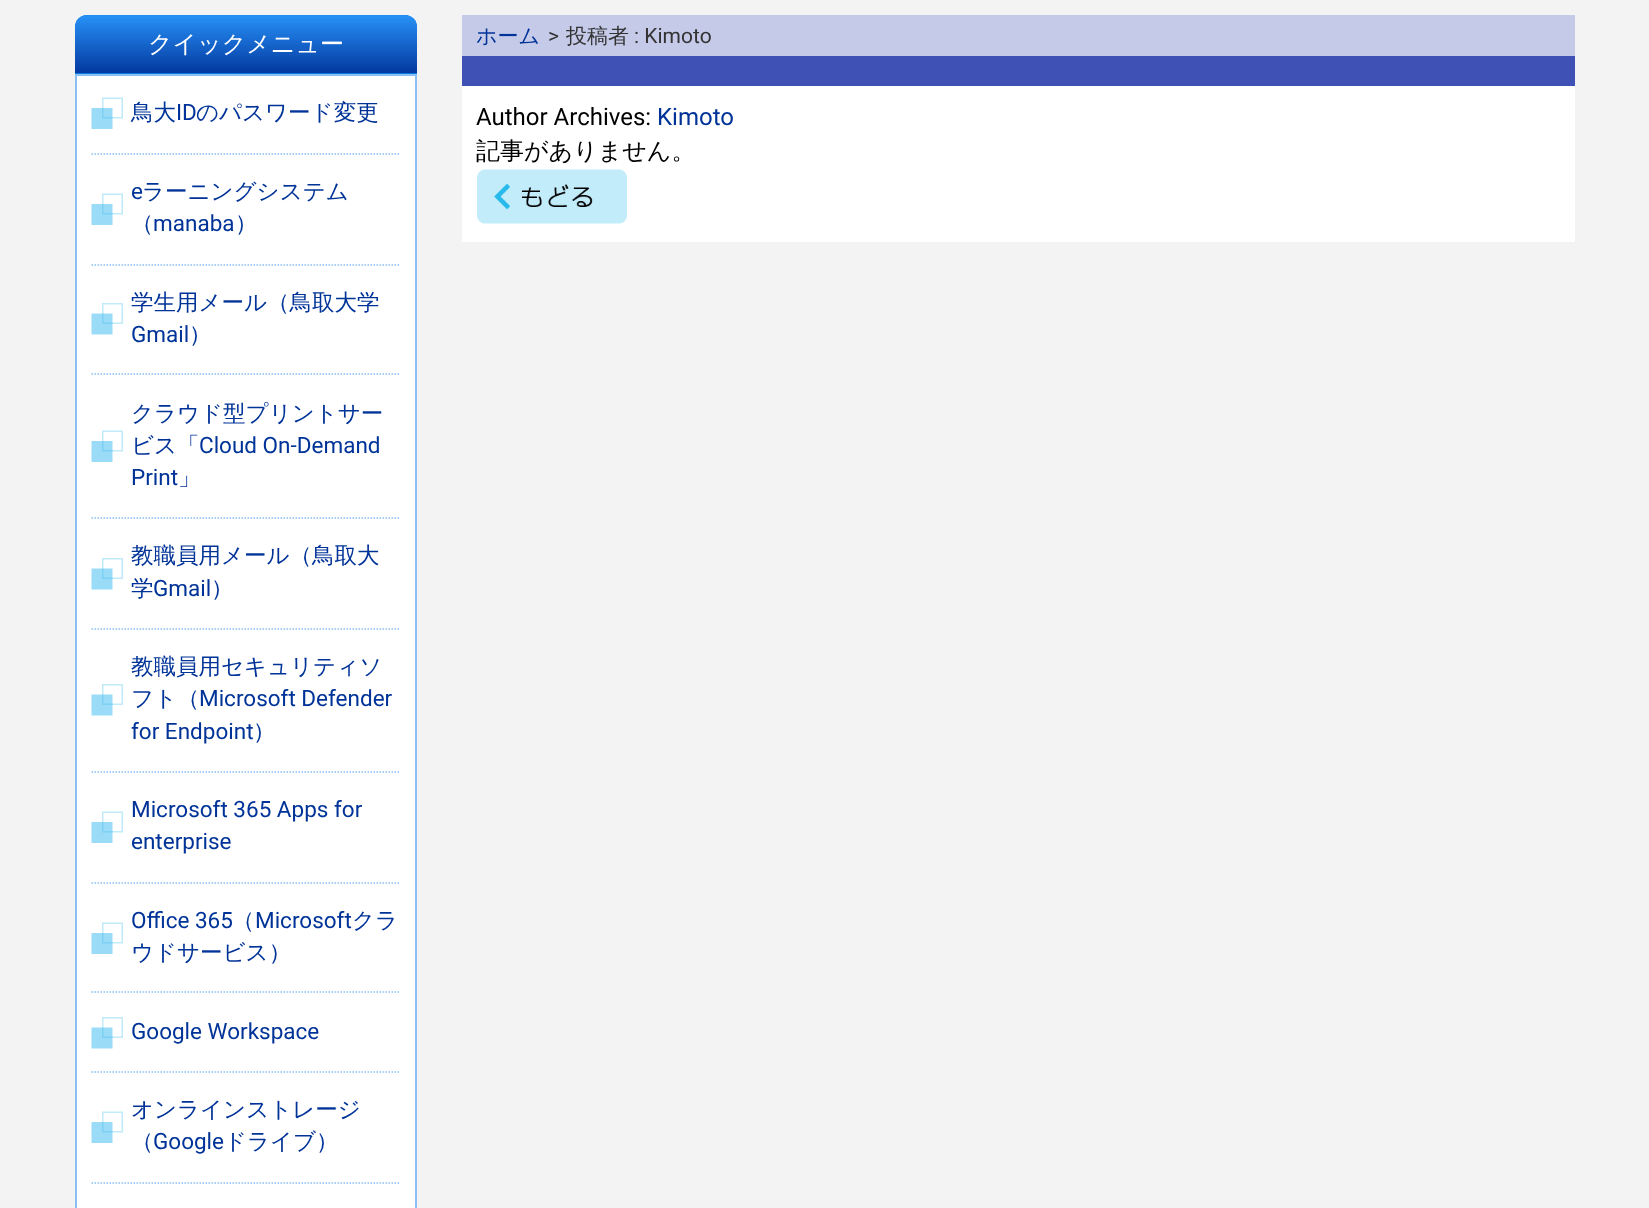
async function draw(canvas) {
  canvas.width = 1649
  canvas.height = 1208
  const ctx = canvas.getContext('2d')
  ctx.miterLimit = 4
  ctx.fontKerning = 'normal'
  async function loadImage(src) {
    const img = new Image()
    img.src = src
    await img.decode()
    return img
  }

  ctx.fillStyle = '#f3f3f3'
  ctx.fillRect(0, 0, 1649, 1208)
  ctx.fillStyle = '#007ce7'
  ctx.beginPath()
  ctx.roundRect(75, 15, 342, 59, [12, 12, 0, 0])
  ctx.fill()
  ctx.drawImage(await loadImage('image0.png'), 75, 15, 342, 59)
  ctx.font = '500 24px WenQuanYi Zen Hei'
  ctx.fillStyle = '#fff'
  ctx.fillText('クイックメニュー', 148, 52)
  ctx.beginPath()
  ctx.rect(76, 75, 340, 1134)
  ctx.fill()
  ctx.strokeStyle = '#8abff3'
  ctx.lineWidth = 2
  ctx.stroke()
  ctx.drawImage(await loadImage('image1.png'), 91, 97, 32, 32)
  ctx.beginPath()
  ctx.moveTo(91.5, 154)
  ctx.lineTo(400.5, 154)
  ctx.lineWidth = 1.5
  ctx.setLineDash([1.5, 1.5])
  ctx.stroke()
  ctx.font = '500 22.5px WenQuanYi Zen Hei'
  ctx.fillStyle = '#003398'
  ctx.fillText('鳥大', 131, 120)
  ctx.font = '22.5px Roboto'
  ctx.fillText('ID', 176, 120)
  ctx.font = '500 22.5px WenQuanYi Zen Hei'
  ctx.fillText('のパスワード変更', 196, 120)
  ctx.drawImage(await loadImage('image1.png'), 91, 193, 32, 32)
  ctx.beginPath()
  ctx.moveTo(91.5, 265)
  ctx.lineTo(400.5, 265)
  ctx.stroke()
  ctx.font = '22.5px Roboto'
  ctx.fillText('e', 131, 199)
  ctx.font = '500 22.5px WenQuanYi Zen Hei'
  ctx.fillText('ラーニングシステム', 142, 199)
  ctx.fillText('（', 131, 231)
  ctx.font = '22.5px Roboto'
  ctx.fillText('manaba', 153, 231)
  ctx.font = '500 22.5px WenQuanYi Zen Hei'
  ctx.fillText('）', 235, 231)
  ctx.drawImage(await loadImage('image2.png'), 91, 303, 32, 32)
  ctx.beginPath()
  ctx.moveTo(91.5, 374)
  ctx.lineTo(400.5, 374)
  ctx.stroke()
  ctx.fillText('学生用メール（鳥取大学', 131, 310)
  ctx.font = '22.5px Roboto'
  ctx.fillText('Gmail', 131, 342)
  ctx.font = '500 22.5px WenQuanYi Zen Hei'
  ctx.fillText('）', 189, 342)
  ctx.drawImage(await loadImage('image1.png'), 91, 430, 32, 32)
  ctx.beginPath()
  ctx.moveTo(91.5, 518)
  ctx.lineTo(400.5, 518)
  ctx.stroke()
  ctx.fillText('クラウド型プリントサー', 131, 421)
  ctx.fillText('ビス「', 131, 453)
  ctx.font = '22.5px Roboto'
  ctx.fillText('Cloud On-Demand', 199, 453)
  ctx.fillText('Print', 131, 485)
  ctx.font = '500 22.5px WenQuanYi Zen Hei'
  ctx.fillText('」', 178, 485)
  ctx.drawImage(await loadImage('image2.png'), 91, 558, 32, 32)
  ctx.beginPath()
  ctx.moveTo(91.5, 629)
  ctx.lineTo(400.5, 629)
  ctx.stroke()
  ctx.fillText('教職員用メール（鳥取大', 131, 563)
  ctx.fillText('学', 131, 596)
  ctx.font = '22.5px Roboto'
  ctx.fillText('Gmail', 153, 596)
  ctx.font = '500 22.5px WenQuanYi Zen Hei'
  ctx.fillText('）', 211, 596)
  ctx.drawImage(await loadImage('image2.png'), 91, 684, 32, 32)
  ctx.beginPath()
  ctx.moveTo(91.5, 772)
  ctx.lineTo(400.5, 772)
  ctx.stroke()
  ctx.fillText('教職員用セキュリティソ', 131, 674)
  ctx.fillText('フト（', 131, 706)
  ctx.font = '22.5px Roboto'
  ctx.fillText('Microsoft Defender', 199, 706)
  ctx.fillText('for Endpoint', 131, 739)
  ctx.font = '500 22.5px WenQuanYi Zen Hei'
  ctx.fillText('）', 253, 739)
  ctx.drawImage(await loadImage('image1.png'), 91, 811, 32, 32)
  ctx.beginPath()
  ctx.moveTo(91.5, 883)
  ctx.lineTo(400.5, 883)
  ctx.stroke()
  ctx.font = '22.5px Roboto'
  ctx.fillText('Microsoft 365 Apps for', 131, 817)
  ctx.fillText('enterprise', 131, 849)
  ctx.drawImage(await loadImage('image1.png'), 91, 922, 32, 32)
  ctx.beginPath()
  ctx.moveTo(91.5, 992)
  ctx.lineTo(400.5, 992)
  ctx.stroke()
  ctx.fillText('Office 365', 131, 928)
  ctx.font = '500 22.5px WenQuanYi Zen Hei'
  ctx.fillText('（', 232, 928)
  ctx.font = '22.5px Roboto'
  ctx.fillText('Microsoft', 255, 928)
  ctx.font = '500 22.5px WenQuanYi Zen Hei'
  ctx.fillText('クラ', 352, 928)
  ctx.fillText('ウドサービス）', 131, 960)
  ctx.drawImage(await loadImage('image2.png'), 91, 1017, 32, 32)
  ctx.beginPath()
  ctx.moveTo(91.5, 1072)
  ctx.lineTo(400.5, 1072)
  ctx.stroke()
  ctx.font = '22.5px Roboto'
  ctx.fillText('Google Workspace', 131, 1039)
  ctx.drawImage(await loadImage('image1.png'), 91, 1111, 32, 32)
  ctx.beginPath()
  ctx.moveTo(91.5, 1183)
  ctx.lineTo(400.5, 1183)
  ctx.stroke()
  ctx.font = '500 22.5px WenQuanYi Zen Hei'
  ctx.fillText('オンラインストレージ', 131, 1117)
  ctx.fillText('（', 131, 1149)
  ctx.font = '22.5px Roboto'
  ctx.fillText('Google', 153, 1149)
  ctx.font = '500 22.5px WenQuanYi Zen Hei'
  ctx.fillText('ドライブ）', 224, 1149)
  ctx.fillStyle = '#c5cae9'
  ctx.fillRect(462, 15, 1113, 41)
  ctx.font = '500 21px WenQuanYi Zen Hei'
  ctx.fillStyle = '#003398'
  ctx.fillText('ホーム', 476, 43)
  ctx.font = '21px Roboto'
  ctx.fillStyle = '#333'
  ctx.fillText('>', 548, 43)
  ctx.font = '500 21px WenQuanYi Zen Hei'
  ctx.fillText('投稿者', 566, 43)
  ctx.font = '21px Roboto'
  ctx.fillText(': Kimoto', 634, 43)
  ctx.fillStyle = '#3f51b5'
  ctx.fillRect(462, 56, 1113, 30)
  ctx.fillStyle = '#fff'
  ctx.fillRect(462, 86, 1113, 156)
  ctx.font = '24px Roboto'
  ctx.fillStyle = '#000'
  ctx.fillText('Author Archives:', 476, 125)
  ctx.fillStyle = '#003398'
  ctx.fillText('Kimoto', 657, 125)
  ctx.font = '500 24px WenQuanYi Zen Hei'
  ctx.fillStyle = '#000'
  ctx.fillText('記事がありません。', 476, 159)
  ctx.drawImage(await loadImage('image3.png'), 477, 169, 150, 55)
}

draw(document.querySelector('canvas'))
